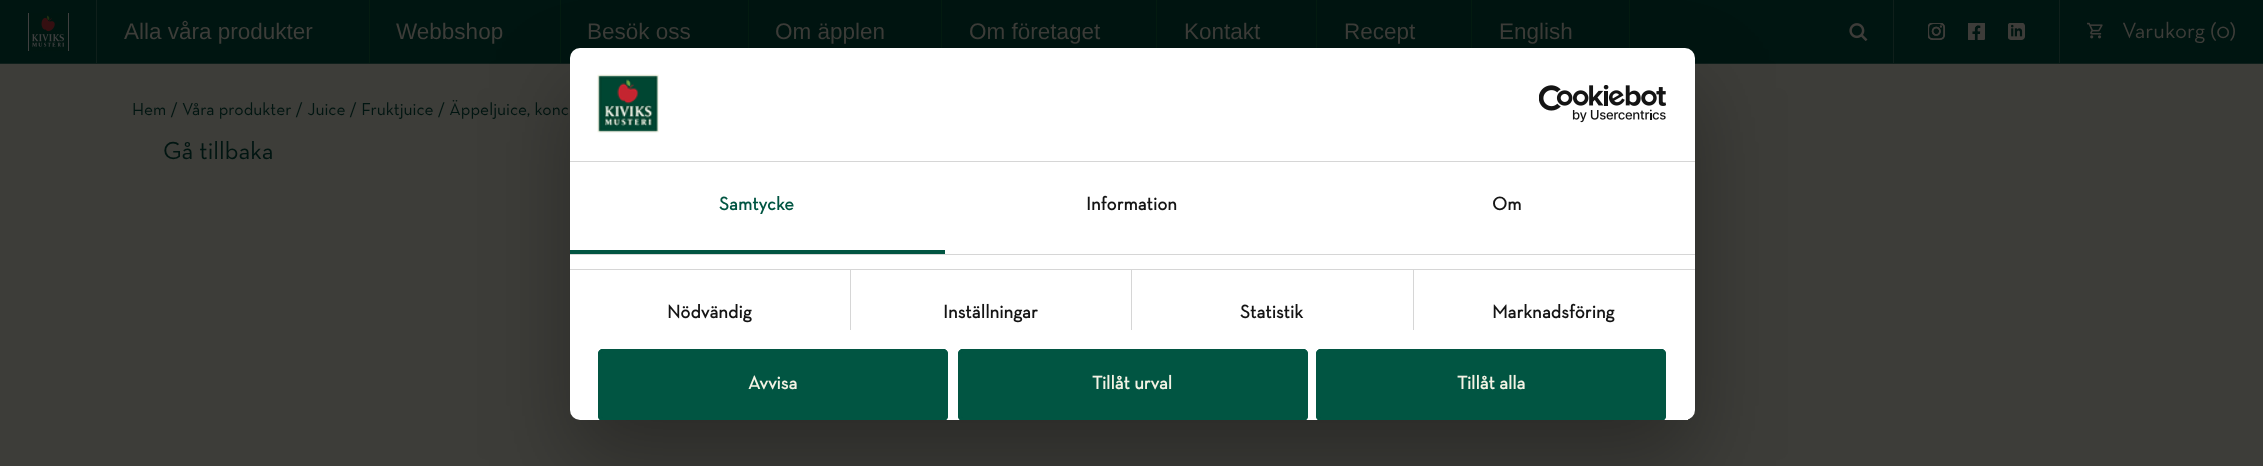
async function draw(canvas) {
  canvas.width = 2263
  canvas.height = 466
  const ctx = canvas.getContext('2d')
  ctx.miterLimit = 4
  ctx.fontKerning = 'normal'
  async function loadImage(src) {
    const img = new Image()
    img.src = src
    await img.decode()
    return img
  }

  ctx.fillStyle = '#3d3d39'
  ctx.fillRect(0, 0, 2263, 466)
  ctx.fillStyle = '#001511'
  ctx.fillRect(0, 0, 2263, 63)
  ctx.fillStyle = '#0f1f1b'
  ctx.fillRect(0, 63, 2263, 1)
  ctx.fillRect(96, 0, 1, 63)
  ctx.drawImage(await loadImage('image0.png'), 28, 13, 41, 38)
  ctx.fillStyle = '#041c11'
  ctx.fillRect(369, 0, 1, 63)
  ctx.font = '22.5px Liberation Sans'
  ctx.fillStyle = '#3d3d39'
  ctx.fillText('Alla våra produkter', 124, 39)
  ctx.fillStyle = '#041c11'
  ctx.fillRect(560, 0, 1, 63)
  ctx.fillStyle = '#3d3d39'
  ctx.fillText('Webbshop', 396, 39)
  ctx.fillStyle = '#041c11'
  ctx.fillRect(748, 0, 1, 48)
  ctx.fillStyle = '#3d3d39'
  ctx.fillText('Besök oss', 587, 39)
  ctx.fillStyle = '#041c11'
  ctx.fillRect(941, 0, 1, 48)
  ctx.fillStyle = '#3d3d39'
  ctx.fillText('Om äpplen', 775, 39)
  ctx.fillStyle = '#041c11'
  ctx.fillRect(1156, 0, 1, 48)
  ctx.fillStyle = '#3d3d39'
  ctx.fillText('Om företaget', 969, 39)
  ctx.fillStyle = '#041c11'
  ctx.fillRect(1316, 0, 1, 48)
  ctx.fillStyle = '#3d3d39'
  ctx.fillText('Kontakt', 1184, 39)
  ctx.fillStyle = '#041c11'
  ctx.fillRect(1471, 0, 1, 48)
  ctx.fillStyle = '#3d3d39'
  ctx.fillText('Recept', 1344, 39)
  ctx.fillStyle = '#041c11'
  ctx.fillRect(1629, 0, 1, 48)
  ctx.fillStyle = '#3d3d39'
  ctx.fillText('English', 1499, 39)
  ctx.fillStyle = '#0f1f1b'
  ctx.fillRect(1893, 0, 1, 63)
  ctx.drawImage(await loadImage('image1.png'), 1849, 23, 19, 18)
  ctx.fillRect(2059, 0, 1, 63)
  ctx.drawImage(await loadImage('image2.png'), 1928, 23, 17, 17)
  ctx.drawImage(await loadImage('image3.png'), 1968, 23, 17, 17)
  ctx.drawImage(await loadImage('image4.png'), 2008, 23, 17, 17)
  ctx.drawImage(await loadImage('image5.png'), 2087, 22, 16, 17)
  ctx.font = '22.5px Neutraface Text'
  ctx.fillStyle = '#3d3d39'
  ctx.fillText('Varukorg (0)', 2122, 38)
  ctx.font = '17.5px Neutraface Text'
  ctx.fillStyle = '#001511'
  ctx.fillText('Hem / Våra produkter / Juice / Fruktjuice / Äppeljuice, konc', 132, 115)
  ctx.font = '25px Neutraface Text'
  ctx.fillText('Gå tillbaka', 163, 159)
  ctx.fillStyle = '#0000004d'
  ctx.filter = 'blur(42.5px)'
  ctx.beginPath()
  ctx.roundRect(570, 88, 1125, 372, 10)
  ctx.fill()
  ctx.filter = 'none'
  ctx.fillStyle = '#fff'
  ctx.beginPath()
  ctx.roundRect(570, 48, 1125, 372, 10)
  ctx.fill()
  ctx.fillStyle = '#d6d6d6'
  ctx.fillRect(570, 161, 1125, 1)
  ctx.drawImage(await loadImage('image6.png'), 597, 74, 62, 59)
  ctx.drawImage(await loadImage('image7.png'), 1539, 85, 127, 38)
  ctx.fillRect(570, 254, 1125, 1)
  ctx.fillStyle = '#015542'
  ctx.fillRect(570, 250, 375, 4)
  ctx.letterSpacing = '0.1px'
  ctx.font = 'bold 18.75px Neutraface Text'
  ctx.fillText('Samtycke', 719, 210)
  ctx.fillStyle = '#141414'
  ctx.fillText('Information', 1086, 210)
  ctx.fillText('Om', 1492, 210)
  ctx.fillStyle = '#d6d6d6'
  ctx.fillRect(570, 269, 1125, 1)
  ctx.fillRect(850, 270, 1, 60)
  ctx.fillStyle = '#141414'
  ctx.fillText('Nödvändig', 667, 318)
  ctx.fillStyle = '#d6d6d6'
  ctx.fillRect(1131, 270, 1, 60)
  ctx.fillStyle = '#141414'
  ctx.fillText('Inställningar', 943, 318)
  ctx.fillStyle = '#d6d6d6'
  ctx.fillRect(1413, 270, 1, 60)
  ctx.fillStyle = '#141414'
  ctx.fillText('Statistik', 1240, 318)
  ctx.fillText('Marknadsföring', 1492, 318)
  ctx.save()
  ctx.beginPath()
  ctx.roundRect(570, 48, 1125, 372, 10)
  ctx.clip()
  ctx.fillStyle = '#015542'
  ctx.beginPath()
  ctx.roundRect(598, 349, 350, 72, 5)
  ctx.fill()
  ctx.restore()
  ctx.fillStyle = '#015542'
  ctx.beginPath()
  ctx.moveTo(603, 349)
  ctx.lineTo(943, 349)
  ctx.bezierCurveTo(946, 349, 948, 351, 948, 354)
  ctx.lineTo(948, 416)
  ctx.bezierCurveTo(948, 418, 947, 419, 946, 420)
  ctx.lineTo(600, 420)
  ctx.bezierCurveTo(599, 419, 598, 418, 598, 416)
  ctx.lineTo(598, 354)
  ctx.bezierCurveTo(598, 351, 600, 349, 603, 349)
  ctx.closePath()
  ctx.moveTo(603, 352)
  ctx.bezierCurveTo(602, 352, 601, 353, 601, 354)
  ctx.lineTo(601, 416)
  ctx.bezierCurveTo(601, 417, 602, 418, 603, 418)
  ctx.lineTo(943, 418)
  ctx.bezierCurveTo(944, 418, 945, 417, 945, 416)
  ctx.lineTo(945, 354)
  ctx.bezierCurveTo(945, 353, 944, 352, 943, 352)
  ctx.closePath()
  ctx.fill('evenodd')
  ctx.letterSpacing = '0px'
  ctx.fillStyle = '#f4f2e4'
  ctx.fillText('Avvisa', 748, 389)
  ctx.save()
  ctx.beginPath()
  ctx.roundRect(570, 48, 1125, 372, 10)
  ctx.clip()
  ctx.fillStyle = '#015542'
  ctx.beginPath()
  ctx.roundRect(958, 349, 350, 72, 5)
  ctx.fill()
  ctx.restore()
  ctx.fillStyle = '#015542'
  ctx.beginPath()
  ctx.moveTo(963, 349)
  ctx.lineTo(1303, 349)
  ctx.bezierCurveTo(1306, 349, 1308, 351, 1308, 354)
  ctx.lineTo(1308, 416)
  ctx.bezierCurveTo(1308, 418, 1307, 419, 1306, 420)
  ctx.lineTo(960, 420)
  ctx.bezierCurveTo(959, 419, 958, 418, 958, 416)
  ctx.lineTo(958, 354)
  ctx.bezierCurveTo(958, 351, 960, 349, 963, 349)
  ctx.closePath()
  ctx.moveTo(963, 352)
  ctx.bezierCurveTo(962, 352, 961, 353, 961, 354)
  ctx.lineTo(961, 416)
  ctx.bezierCurveTo(961, 417, 962, 418, 963, 418)
  ctx.lineTo(1303, 418)
  ctx.bezierCurveTo(1304, 418, 1305, 417, 1305, 416)
  ctx.lineTo(1305, 354)
  ctx.bezierCurveTo(1305, 353, 1304, 352, 1303, 352)
  ctx.closePath()
  ctx.fill('evenodd')
  ctx.fillStyle = '#f4f2e4'
  ctx.fillText('Tillåt urval', 1092, 389)
  ctx.save()
  ctx.beginPath()
  ctx.roundRect(570, 48, 1125, 372, 10)
  ctx.clip()
  ctx.fillStyle = '#015542'
  ctx.beginPath()
  ctx.roundRect(1316, 349, 350, 72, 5)
  ctx.fill()
  ctx.restore()
  ctx.fillStyle = '#015542'
  ctx.beginPath()
  ctx.moveTo(1321, 349)
  ctx.lineTo(1661, 349)
  ctx.bezierCurveTo(1664, 349, 1666, 351, 1666, 354)
  ctx.lineTo(1666, 416)
  ctx.bezierCurveTo(1666, 418, 1665, 419, 1664, 420)
  ctx.lineTo(1318, 420)
  ctx.bezierCurveTo(1317, 419, 1316, 418, 1316, 416)
  ctx.lineTo(1316, 354)
  ctx.bezierCurveTo(1316, 351, 1318, 349, 1321, 349)
  ctx.closePath()
  ctx.moveTo(1321, 352)
  ctx.bezierCurveTo(1320, 352, 1319, 353, 1319, 354)
  ctx.lineTo(1319, 416)
  ctx.bezierCurveTo(1319, 417, 1320, 418, 1321, 418)
  ctx.lineTo(1661, 418)
  ctx.bezierCurveTo(1662, 418, 1663, 417, 1663, 416)
  ctx.lineTo(1663, 354)
  ctx.bezierCurveTo(1663, 353, 1662, 352, 1661, 352)
  ctx.closePath()
  ctx.fill('evenodd')
  ctx.fillStyle = '#f4f2e4'
  ctx.fillText('Tillåt alla', 1457, 389)
  ctx.fillStyle = '#fff'
  ctx.fillRect(1685, 419, 3, 1)
}

draw(document.querySelector('canvas'))
